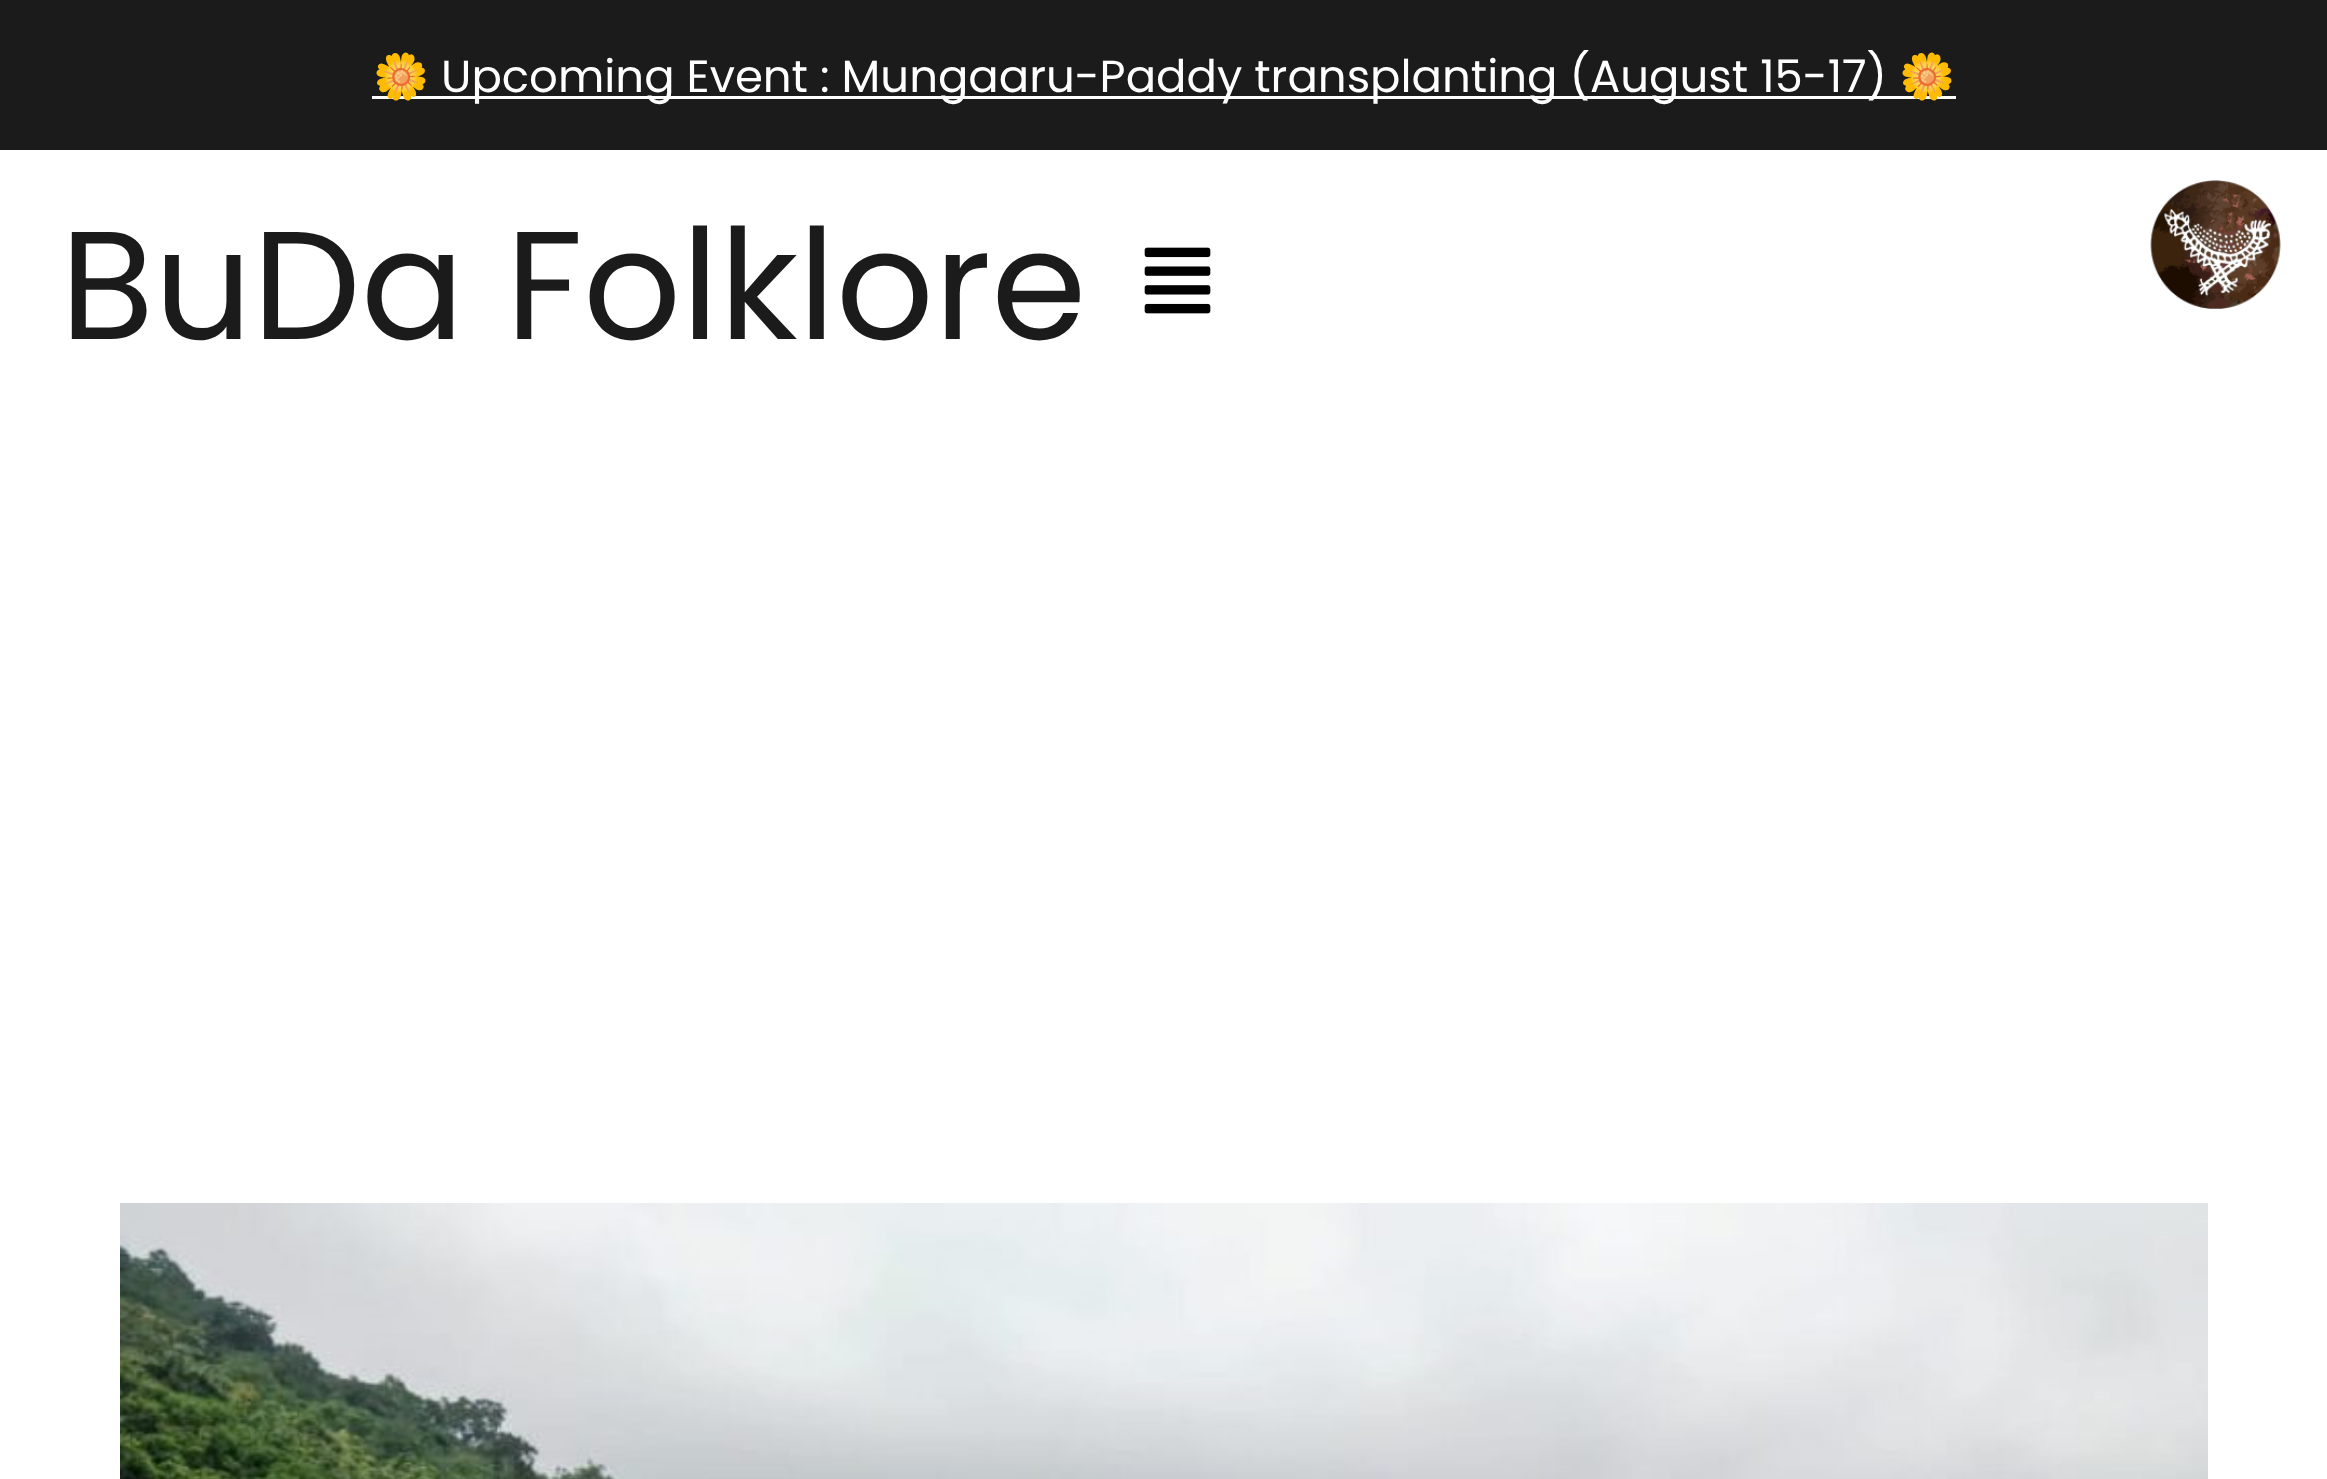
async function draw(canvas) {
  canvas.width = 2327
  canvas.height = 1479
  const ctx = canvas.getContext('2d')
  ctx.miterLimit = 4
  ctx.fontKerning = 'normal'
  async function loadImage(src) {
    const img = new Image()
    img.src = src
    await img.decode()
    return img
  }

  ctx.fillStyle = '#fff'
  ctx.fillRect(0, 0, 2327, 1479)
  ctx.fillStyle = '#1b1b1b'
  ctx.fillRect(0, 0, 2327, 150)
  ctx.fillStyle = '#fff'
  ctx.fillRect(372, 96, 1584, 3)
  ctx.font = '45px Noto Color Emoji'
  ctx.fillText('🌼', 373, 92)
  ctx.font = '45px Poppins'
  ctx.fillText('Upcoming Event : Mungaaru-Paddy transplanting (August 15-17)', 441, 92)
  ctx.font = '45px Noto Color Emoji'
  ctx.fillText('🌼', 1899, 92)
  ctx.font = '153.5px Poppins'
  ctx.fillStyle = '#1b1b1b'
  ctx.fillText('BuDa Folklore', 60, 339)
  ctx.drawImage(await loadImage('image0.png'), 1144, 247, 67, 67)
  ctx.drawImage(await loadImage('image1.png'), 2150, 180, 131, 129)
  ctx.drawImage(await loadImage('image2.png'), 120, 1203, 2088, 276)
}

draw(document.querySelector('canvas'))
